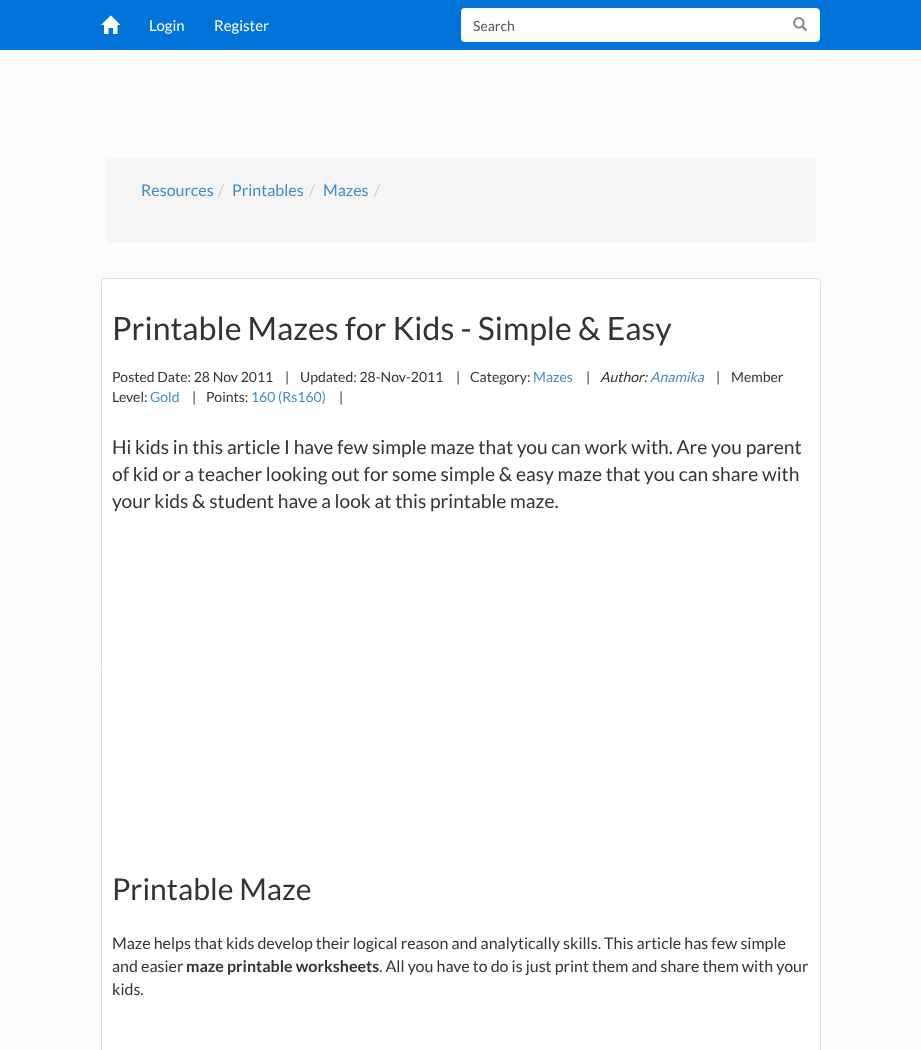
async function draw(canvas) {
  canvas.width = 921
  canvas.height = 1050
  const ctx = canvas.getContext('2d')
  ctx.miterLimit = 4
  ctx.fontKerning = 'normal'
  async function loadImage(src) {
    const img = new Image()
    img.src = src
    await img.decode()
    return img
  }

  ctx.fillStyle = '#fcfcfc'
  ctx.fillRect(0, 0, 921, 1050)
  ctx.fillStyle = '#0074d9'
  ctx.fillRect(0, 0, 921, 50)
  ctx.drawImage(await loadImage('image0.png'), 101, 15, 20, 19)
  ctx.font = '15px Lato'
  ctx.fillStyle = '#fff'
  ctx.fillText('Login', 149, 31)
  ctx.fillText('Register', 214, 31)
  ctx.beginPath()
  ctx.roundRect(780.5, 8.5, 39, 33, [0, 3.5, 3.5, 0])
  ctx.fill()
  ctx.strokeStyle = '#fff'
  ctx.stroke()
  ctx.beginPath()
  ctx.roundRect(461, 8, 320, 34, [4, 0, 0, 4])
  ctx.fill()
  ctx.font = '14px Lato'
  ctx.fillStyle = '#555'
  ctx.fillText('Search', 473, 31)
  ctx.drawImage(await loadImage('image1.png'), 793, 17, 14, 14)
  ctx.fillStyle = '#f5f5f5'
  ctx.beginPath()
  ctx.roundRect(106, 158, 710, 85, 4)
  ctx.fill()
  ctx.font = '16px Lato'
  ctx.fillStyle = '#428bca'
  ctx.fillText('Resources', 141, 196)
  ctx.fillStyle = '#ccc'
  ctx.fillText('/', 218, 196)
  ctx.fillStyle = '#428bca'
  ctx.fillText('Printables', 232, 196)
  ctx.fillStyle = '#ccc'
  ctx.fillText('/', 309, 196)
  ctx.fillStyle = '#428bca'
  ctx.fillText('Mazes', 323, 196)
  ctx.fillStyle = '#ccc'
  ctx.fillText('/', 374, 196)
  ctx.fillStyle = '#fff'
  ctx.beginPath()
  ctx.roundRect(101.5, 278.5, 719, 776, 3.5)
  ctx.fill()
  ctx.strokeStyle = '#ddd'
  ctx.stroke()
  ctx.font = '32px Lato'
  ctx.fillStyle = '#333'
  ctx.fillText('Printable Mazes for Kids - Simple & Easy', 112, 340)
  ctx.font = '14px Lato'
  ctx.fillText('Posted Date: 28 Nov 2011', 112, 382)
  ctx.fillText('|', 285, 382)
  ctx.fillText('Updated: 28-Nov-2011', 300, 382)
  ctx.fillText('|', 456, 382)
  ctx.fillText('Category:', 470, 382)
  ctx.fillStyle = '#428bca'
  ctx.fillText('Mazes', 533, 382)
  ctx.fillStyle = '#333'
  ctx.fillText('|', 586, 382)
  ctx.font = 'italic 14px Lato'
  ctx.fillText('Author:', 600, 382)
  ctx.fillStyle = '#428bca'
  ctx.fillText('Anamika', 650, 382)
  ctx.font = '14px Lato'
  ctx.fillStyle = '#333'
  ctx.fillText('|', 716, 382)
  ctx.fillText('Member', 731, 382)
  ctx.fillText('Level:', 112, 402)
  ctx.fillStyle = '#428bca'
  ctx.fillText('Gold', 150, 402)
  ctx.fillStyle = '#333'
  ctx.fillText('|', 192, 402)
  ctx.fillText('Points:', 206, 402)
  ctx.fillStyle = '#428bca'
  ctx.fillText('160 (Rs160)', 251, 402)
  ctx.fillStyle = '#333'
  ctx.fillText('|', 339, 402)
  ctx.font = '19.2px Lato'
  ctx.fillText('Hi kids in this article I have few simple maze that you can work with. Are you parent', 112, 454)
  ctx.fillText('of kid or a teacher looking out for some simple & easy maze that you can share with', 112, 481)
  ctx.fillText('your kids & student have a look at this printable maze.', 112, 508)
  ctx.font = '30px Lato'
  ctx.fillText('Printable Maze', 112, 900)
  ctx.font = '16px Lato'
  ctx.fillText('Maze helps that kids develop their logical reason and analytically skills. This article has few simple', 112, 949)
  ctx.fillText('and easier', 112, 972)
  ctx.font = 'bold 16px Lato'
  ctx.fillText('maze printable worksheets', 186, 972)
  ctx.font = '16px Lato'
  ctx.fillText('. All you have to do is just print them and share them with your', 379, 972)
  ctx.fillText('kids.', 112, 995)
}

draw(document.querySelector('canvas'))
